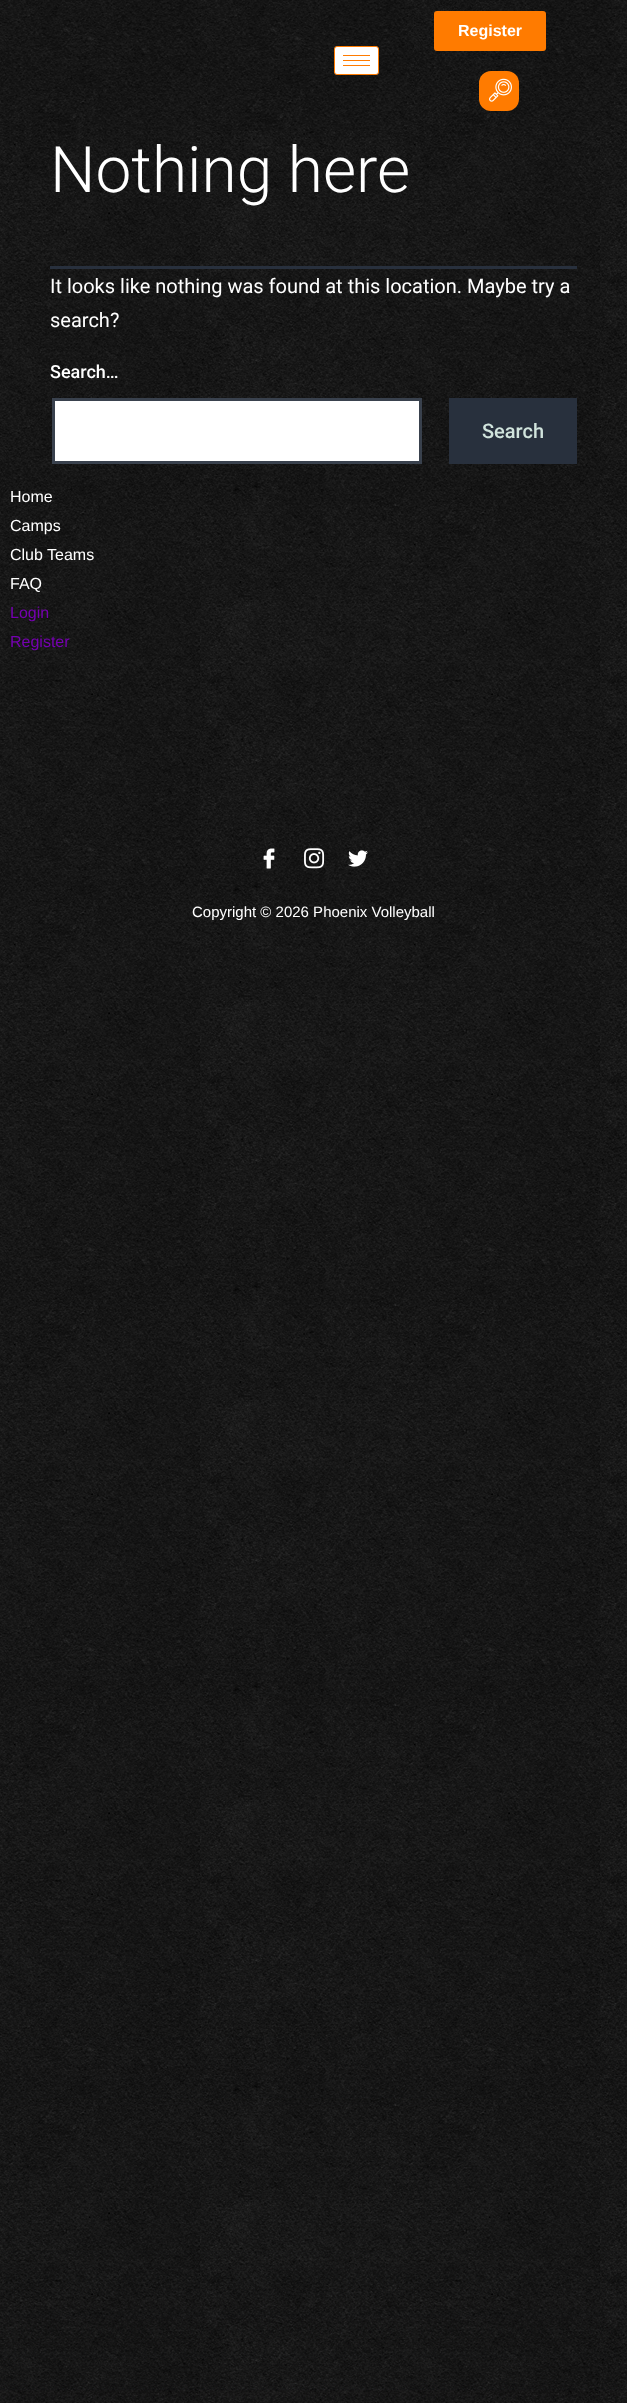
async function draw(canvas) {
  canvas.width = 627
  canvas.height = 2403
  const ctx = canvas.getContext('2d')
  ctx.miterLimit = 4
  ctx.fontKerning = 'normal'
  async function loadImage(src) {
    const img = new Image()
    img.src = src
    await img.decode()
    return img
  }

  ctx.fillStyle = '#fff'
  ctx.fillRect(0, 0, 627, 2403)
  ctx.drawImage(await loadImage('image0.png'), 0, 131, 627, 2272)
  ctx.drawImage(await loadImage('image1.png'), 0, 0, 207, 131)
  ctx.drawImage(await loadImage('image1.png'), 207, 0, 207, 131)
  ctx.beginPath()
  ctx.roundRect(334.5, 46.5, 44, 28, 2.5)
  ctx.fill()
  ctx.strokeStyle = '#ff7b00'
  ctx.stroke()
  ctx.fillStyle = '#ff7b00'
  ctx.fillRect(343, 55, 27, 1)
  ctx.fillRect(343, 60, 27, 1)
  ctx.fillRect(343, 65, 27, 1)
  ctx.drawImage(await loadImage('image2.png'), 414, 0, 213, 131)
  ctx.beginPath()
  ctx.roundRect(434, 11, 112, 40, 3)
  ctx.fill()
  ctx.font = 'bold 16px Liberation Sans'
  ctx.fillStyle = '#fff'
  ctx.fillText('Register', 458, 36)
  ctx.fillStyle = '#ff7b00'
  ctx.beginPath()
  ctx.roundRect(479, 71, 40, 40, 12)
  ctx.fill()
  ctx.drawImage(await loadImage('image3.png'), 489, 78, 23, 24)
  ctx.fillStyle = '#28303d'
  ctx.fillRect(50, 266, 527, 3)
  ctx.font = '300 64px Roboto'
  ctx.fillStyle = '#fff'
  ctx.fillText('Nothing here', 50, 192)
  ctx.font = '20px Roboto'
  ctx.fillText('It looks like nothing was found at this location. Maybe try a', 50, 293)
  ctx.fillText('search?', 50, 327)
  ctx.font = '500 18px Roboto'
  ctx.fillText('Search…', 50, 378)
  ctx.beginPath()
  ctx.rect(53.5, 399.5, 367, 63)
  ctx.fill()
  ctx.strokeStyle = '#39414d'
  ctx.lineWidth = 3
  ctx.stroke()
  ctx.fillStyle = '#28303d'
  ctx.fillRect(449, 398, 128, 66)
  ctx.font = '500 20px Roboto'
  ctx.fillStyle = '#d1e4dd'
  ctx.fillText('Search', 482, 438)
  ctx.font = '16px Liberation Sans'
  ctx.fillStyle = '#fff'
  ctx.fillText('Home', 10, 502)
  ctx.fillText('Camps', 10, 531)
  ctx.fillText('Club Teams', 10, 560)
  ctx.fillText('FAQ', 10, 589)
  ctx.fillStyle = '#7600b1'
  ctx.fillText('Login', 10, 618)
  ctx.fillText('Register', 10, 647)
  ctx.drawImage(await loadImage('image4.png'), 263, 848, 12, 21)
  ctx.drawImage(await loadImage('image5.png'), 304, 848, 21, 21)
  ctx.drawImage(await loadImage('image6.png'), 348, 850, 20, 17)
  ctx.font = '15px Liberation Sans'
  ctx.fillStyle = '#fff'
  ctx.fillText('Copyright © 2026 Phoenix Volleyball', 192, 917)
}

draw(document.querySelector('canvas'))
